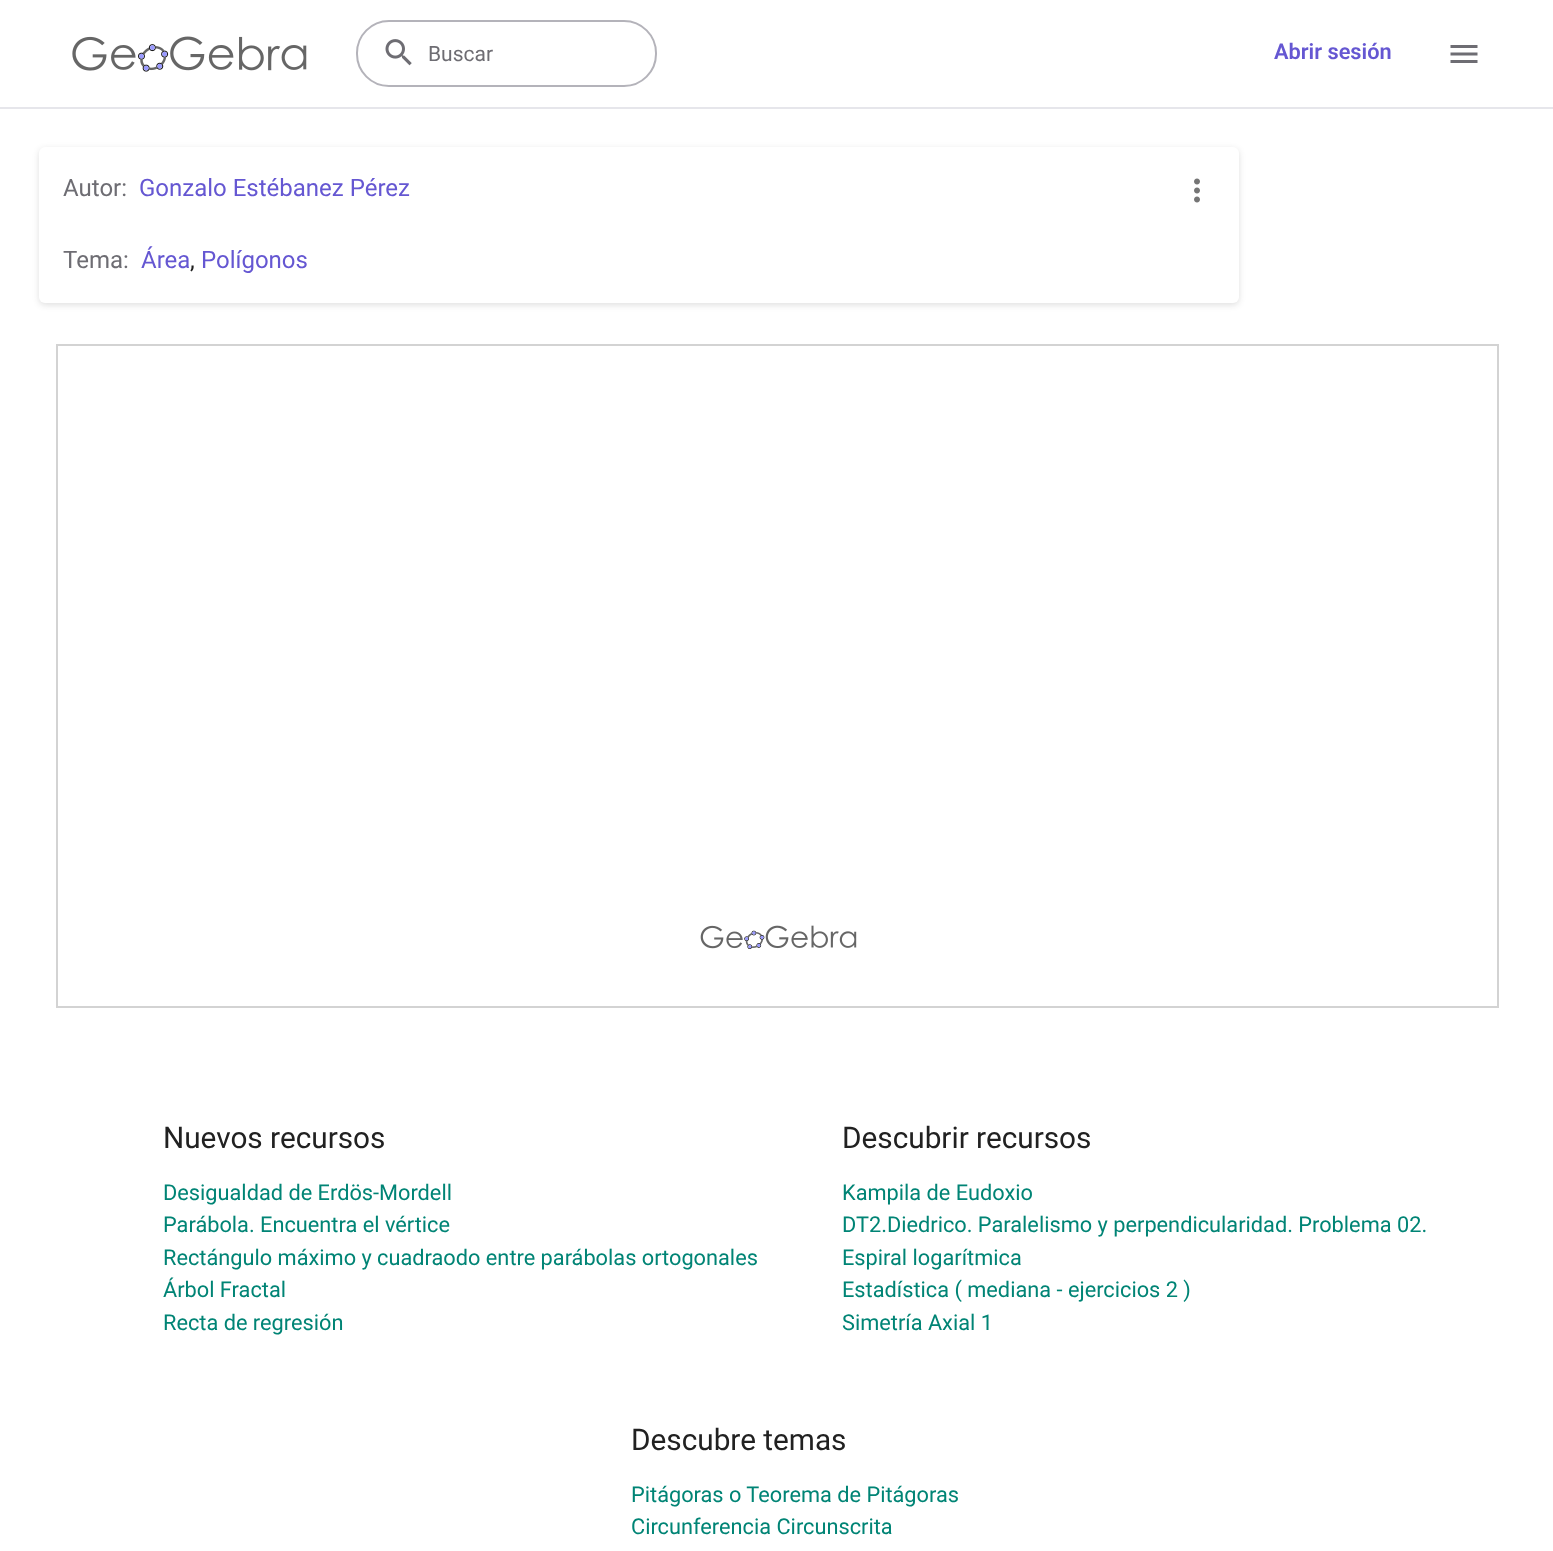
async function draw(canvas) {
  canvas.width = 1553
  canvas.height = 1551
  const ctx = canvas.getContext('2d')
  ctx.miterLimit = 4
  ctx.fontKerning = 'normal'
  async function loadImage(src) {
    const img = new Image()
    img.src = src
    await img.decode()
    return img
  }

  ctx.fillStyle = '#fff'
  ctx.fillRect(0, 0, 1553, 1551)
  ctx.fillStyle = '#e6e6eb'
  ctx.fillRect(0, 107, 1553, 2)
  ctx.drawImage(await loadImage('image0.png'), 72, 36, 235, 36)
  ctx.beginPath()
  ctx.roundRect(357, 21, 299, 65, 32)
  ctx.strokeStyle = '#b4b3ba'
  ctx.lineWidth = 2
  ctx.stroke()
  ctx.drawImage(await loadImage('image1.png'), 385, 39, 27, 27)
  ctx.font = '21px Roboto'
  ctx.fillStyle = '#6e6d73'
  ctx.fillText('Buscar', 428, 61)
  ctx.font = '600 21.75px Roboto'
  ctx.fillStyle = '#6557d2'
  ctx.fillText('Abrir sesión', 1274, 59)
  ctx.drawImage(await loadImage('image2.png'), 1450, 45, 28, 18)
  ctx.fillStyle = '#1c1c1f24'
  ctx.filter = 'blur(3px)'
  ctx.beginPath()
  ctx.roundRect(39, 149, 1200, 156, 6)
  ctx.fill()
  ctx.filter = 'none'
  ctx.fillStyle = '#fff'
  ctx.beginPath()
  ctx.roundRect(39, 147, 1200, 156, 6)
  ctx.fill()
  ctx.font = '24px Roboto'
  ctx.fillStyle = '#6e6d73'
  ctx.fillText('Autor:', 63, 196)
  ctx.fillStyle = '#6557d2'
  ctx.fillText('Gonzalo Estébanez Pérez', 139, 196)
  ctx.fillStyle = '#6e6d73'
  ctx.fillText('Tema:', 63, 268)
  ctx.fillStyle = '#6557d2'
  ctx.fillText('Área', 141, 268)
  ctx.fillStyle = '#212121'
  ctx.fillText(',', 190, 268)
  ctx.fillStyle = '#6557d2'
  ctx.fillText('Polígonos', 201, 268)
  ctx.drawImage(await loadImage('image3.png'), 1194, 178, 6, 25)
  ctx.drawImage(await loadImage('image4.png'), 700, 925, 157, 24)
  ctx.strokeStyle = '#d3d3d3'
  ctx.strokeRect(57, 345, 1441, 662)
  ctx.font = '29.75px Roboto'
  ctx.fillStyle = '#212121'
  ctx.fillText('Nuevos recursos', 163, 1148)
  ctx.font = '21.75px Roboto'
  ctx.fillStyle = '#008475'
  ctx.fillText('Desigualdad de Erdös-Mordell', 163, 1200)
  ctx.fillText('Parábola. Encuentra el vértice', 163, 1232)
  ctx.fillText('Rectángulo máximo y cuadraodo entre parábolas ortogonales', 163, 1265)
  ctx.fillText('Árbol Fractal', 163, 1297)
  ctx.fillText('Recta de regresión', 163, 1330)
  ctx.font = '29.75px Roboto'
  ctx.fillStyle = '#212121'
  ctx.fillText('Descubrir recursos', 842, 1148)
  ctx.font = '21.75px Roboto'
  ctx.fillStyle = '#008475'
  ctx.fillText('Kampila de Eudoxio', 842, 1200)
  ctx.fillText('DT2.Diedrico. Paralelismo y perpendicularidad. Problema 02.', 842, 1232)
  ctx.fillText('Espiral logarítmica', 842, 1265)
  ctx.fillText('Estadística ( mediana - ejercicios 2 )', 842, 1297)
  ctx.fillText('Simetría Axial 1', 842, 1330)
  ctx.font = '29.75px Roboto'
  ctx.fillStyle = '#212121'
  ctx.fillText('Descubre temas', 631, 1450)
  ctx.font = '21.75px Roboto'
  ctx.fillStyle = '#008475'
  ctx.fillText('Pitágoras o Teorema de Pitágoras', 631, 1502)
  ctx.fillText('Circunferencia Circunscrita', 631, 1534)
}

draw(document.querySelector('canvas'))
